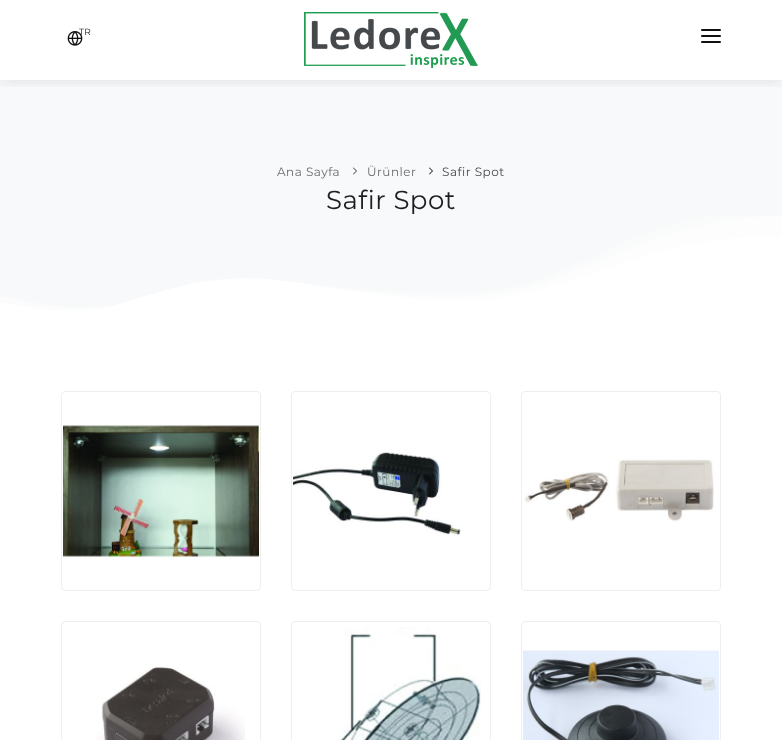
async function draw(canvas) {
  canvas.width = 782
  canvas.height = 740
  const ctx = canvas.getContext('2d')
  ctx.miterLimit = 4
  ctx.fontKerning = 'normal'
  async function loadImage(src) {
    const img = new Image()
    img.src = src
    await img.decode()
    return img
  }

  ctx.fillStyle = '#fff'
  ctx.fillRect(0, 0, 782, 740)
  ctx.fillStyle = '#f8f9fa'
  ctx.fillRect(0, 80, 782, 231)
  ctx.save()
  ctx.beginPath()
  ctx.rect(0, 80, 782, 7)
  ctx.clip()
  ctx.fillStyle = '#0000001a'
  ctx.filter = 'blur(7.5px)'
  ctx.beginPath()
  ctx.rect(0, 1, 782, 80)
  ctx.fill()
  ctx.filter = 'none'
  ctx.restore()
  ctx.drawImage(await loadImage('image0.png'), 67, 31, 16, 15)
  ctx.font = '9px Montserrat'
  ctx.fillStyle = '#111'
  ctx.fillText('TR', 79, 35)
  ctx.drawImage(await loadImage('image1.png'), 304, 12, 174, 56)
  ctx.beginPath()
  ctx.roundRect(701, 35, 20, 2, 1)
  ctx.fill()
  ctx.beginPath()
  ctx.roundRect(701, 29, 20, 2, 1)
  ctx.fill()
  ctx.beginPath()
  ctx.roundRect(701, 41, 20, 2, 1)
  ctx.fill()
  ctx.letterSpacing = '0.5px'
  ctx.font = '12px Montserrat'
  ctx.fillStyle = '#6b6b6c'
  ctx.fillText('Ana Sayfa', 277, 176)
  ctx.drawImage(await loadImage('image2.png'), 353, 167, 4, 8)
  ctx.fillText('Ürünler', 367, 176)
  ctx.drawImage(await loadImage('image3.png'), 429, 167, 4, 8)
  ctx.fillStyle = '#484848'
  ctx.fillText('Safir Spot', 442, 176)
  ctx.font = '26px Montserrat'
  ctx.fillStyle = '#1f1f1f'
  ctx.fillText('Safir Spot', 326, 209)
  ctx.drawImage(await loadImage('image4.png'), 0, 216, 782, 95)
  ctx.beginPath()
  ctx.roundRect(61.5, 391.5, 199, 199, 3.5)
  ctx.strokeStyle = '#eee'
  ctx.stroke()
  ctx.drawImage(await loadImage('image5.png'), 63, 424, 196, 134)
  ctx.beginPath()
  ctx.roundRect(291.5, 391.5, 199, 199, 3.5)
  ctx.stroke()
  ctx.drawImage(await loadImage('image6.png'), 293, 452, 168, 84)
  ctx.beginPath()
  ctx.roundRect(521.5, 391.5, 199, 199, 3.5)
  ctx.stroke()
  ctx.drawImage(await loadImage('image7.png'), 524, 459, 191, 63)
  ctx.beginPath()
  ctx.roundRect(61.5, 621.5, 199, 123, 3.5)
  ctx.stroke()
  ctx.drawImage(await loadImage('image8.png'), 96, 666, 149, 74)
  ctx.beginPath()
  ctx.roundRect(291.5, 621.5, 199, 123, 3.5)
  ctx.stroke()
  ctx.drawImage(await loadImage('image9.png'), 337, 627, 144, 113)
  ctx.beginPath()
  ctx.roundRect(521.5, 621.5, 199, 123, 3.5)
  ctx.stroke()
  ctx.drawImage(await loadImage('image10.png'), 523, 650, 196, 90)
}

draw(document.querySelector('canvas'))
